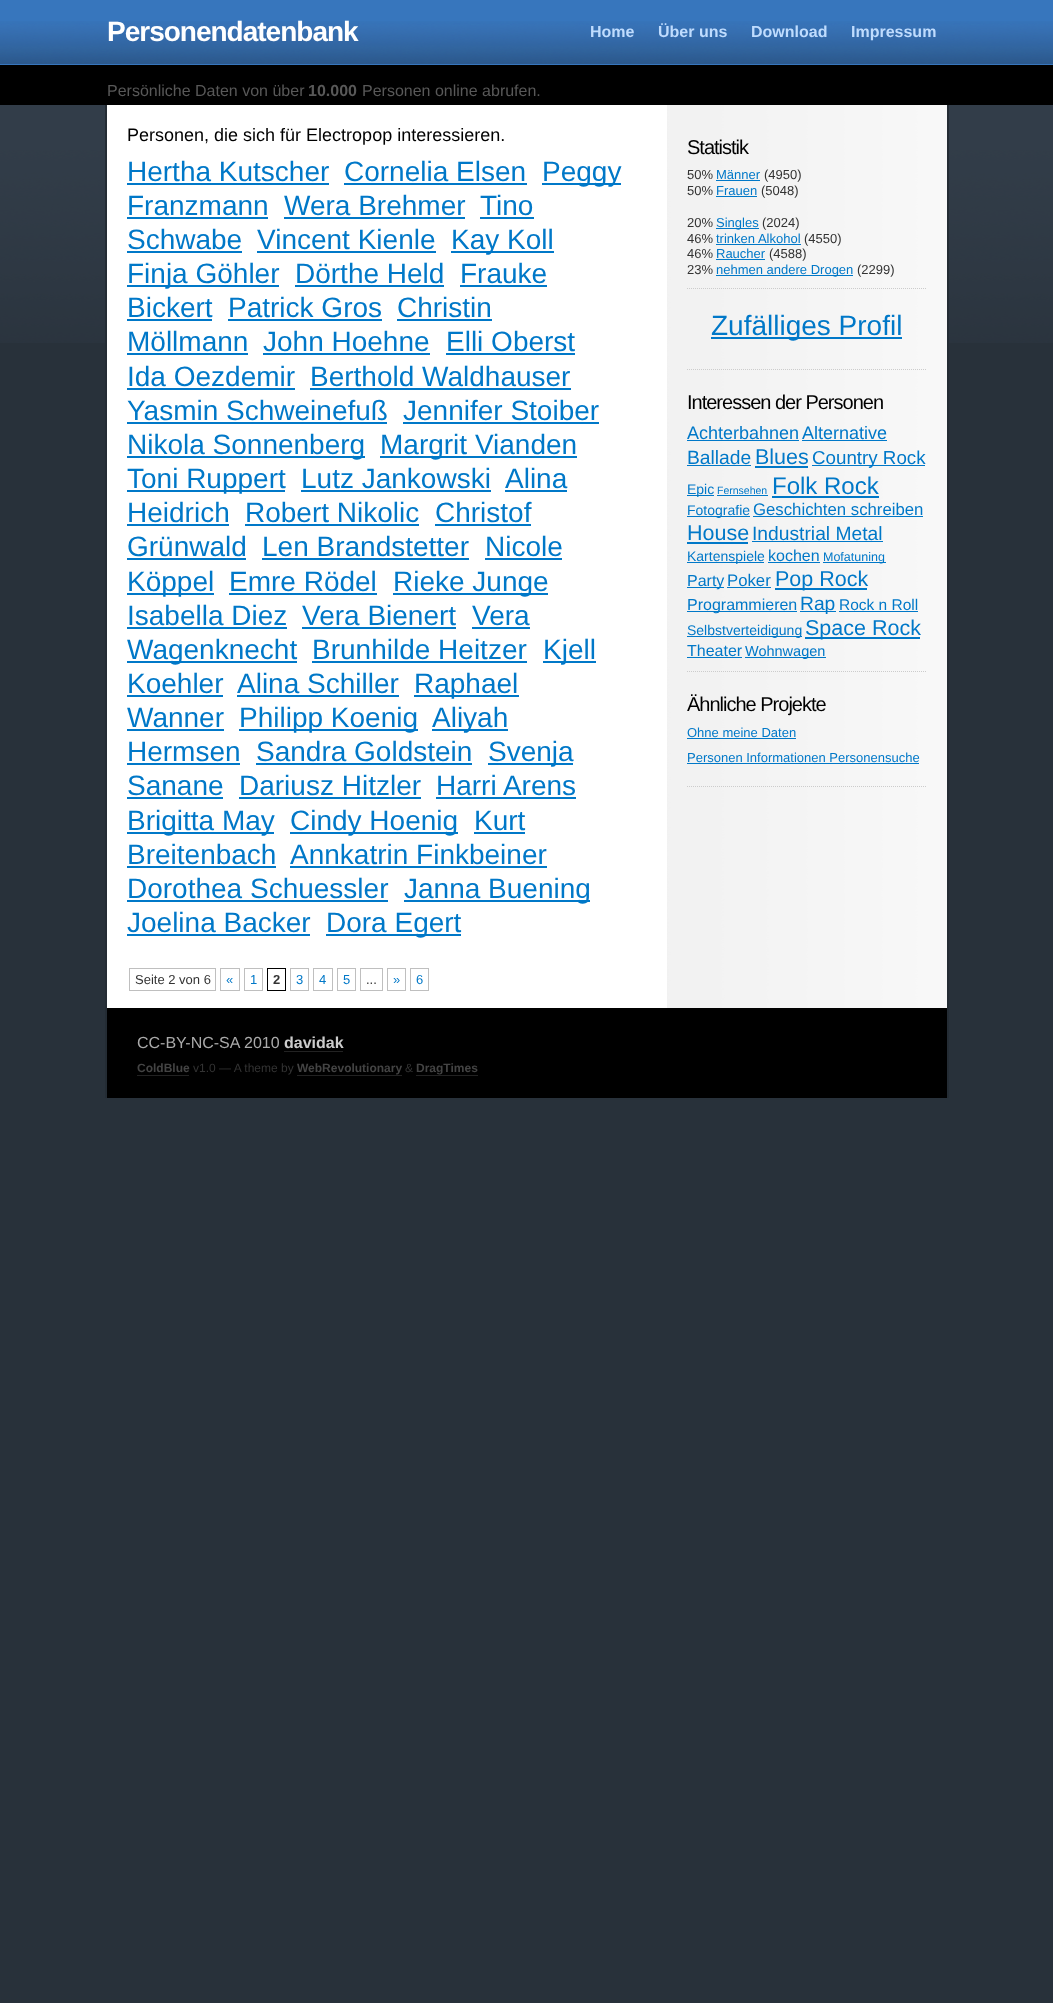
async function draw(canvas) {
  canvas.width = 1053
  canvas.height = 2003
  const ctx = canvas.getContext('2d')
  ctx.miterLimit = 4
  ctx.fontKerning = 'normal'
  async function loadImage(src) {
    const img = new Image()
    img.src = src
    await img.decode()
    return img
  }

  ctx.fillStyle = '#28313a'
  ctx.fillRect(0, 0, 1053, 2003)
  ctx.drawImage(await loadImage('image0.png'), 0, 105, 1053, 238)
  ctx.fillStyle = '#3776bd'
  ctx.fillRect(0, 0, 1053, 65)
  ctx.drawImage(await loadImage('image1.png'), 0, 21, 1053, 43)
  ctx.letterSpacing = '-1px'
  ctx.font = 'bold 28px Liberation Sans'
  ctx.fillStyle = '#fff'
  ctx.fillText('Personendatenbank', 107, 41)
  ctx.letterSpacing = '0px'
  ctx.font = 'bold 16px Liberation Sans'
  ctx.fillStyle = '#bfdcfe'
  ctx.fillText('Home', 590, 37)
  ctx.fillText('Über uns', 658, 37)
  ctx.fillText('Download', 751, 37)
  ctx.fillText('Impressum', 851, 37)
  ctx.fillStyle = '#000'
  ctx.fillRect(0, 65, 1053, 40)
  ctx.font = '16px Liberation Sans'
  ctx.fillStyle = '#585858'
  ctx.fillText('Persönliche Daten von über', 107, 96)
  ctx.font = 'bold 16px Liberation Sans'
  ctx.fillText('10.000', 308, 96)
  ctx.font = '16px Liberation Sans'
  ctx.fillText('Personen online abrufen.', 362, 96)
  ctx.fillStyle = '#fff'
  ctx.fillRect(107, 105, 560, 903)
  ctx.drawImage(await loadImage('image2.png'), 667, 105, 280, 903)
  ctx.fillStyle = '#242c34'
  ctx.fillRect(947, 105, 2, 993)
  ctx.fillRect(105, 105, 2, 993)
  ctx.font = '18px Liberation Sans'
  ctx.fillStyle = '#000'
  ctx.fillText('Personen, die sich für Electropop interessieren.', 127, 141)
  ctx.font = '28px Liberation Sans'
  ctx.fillStyle = '#0078c8'
  ctx.fillText('Hertha Kutscher', 127, 181)
  ctx.fillRect(127, 183, 202, 2)
  ctx.fillText('Cornelia Elsen', 344, 181)
  ctx.fillRect(344, 183, 183, 2)
  ctx.fillRect(542, 183, 79, 2)
  ctx.fillText('Peggy', 542, 181)
  ctx.fillText('Franzmann', 127, 215)
  ctx.fillRect(127, 217, 141, 2)
  ctx.fillText('Wera Brehmer', 284, 215)
  ctx.fillRect(284, 217, 181, 2)
  ctx.fillText('Tino', 480, 215)
  ctx.fillRect(480, 217, 54, 2)
  ctx.fillText('Schwabe', 127, 249)
  ctx.fillRect(127, 251, 115, 2)
  ctx.fillText('Vincent Kienle', 257, 249)
  ctx.fillRect(257, 251, 179, 2)
  ctx.fillRect(451, 251, 103, 2)
  ctx.fillText('Kay Koll', 451, 249)
  ctx.fillRect(127, 285, 152, 2)
  ctx.fillText('Finja Göhler', 127, 283)
  ctx.fillText('Dörthe Held', 295, 283)
  ctx.fillRect(295, 285, 149, 2)
  ctx.fillText('Frauke', 460, 283)
  ctx.fillRect(460, 285, 87, 2)
  ctx.fillText('Bickert', 127, 317)
  ctx.fillRect(127, 319, 85, 2)
  ctx.fillText('Patrick Gros', 228, 317)
  ctx.fillRect(228, 319, 154, 2)
  ctx.fillText('Christin', 397, 317)
  ctx.fillRect(397, 319, 95, 2)
  ctx.fillText('Möllmann', 127, 351)
  ctx.fillRect(127, 353, 121, 2)
  ctx.fillText('John Hoehne', 263, 351)
  ctx.fillRect(263, 353, 167, 2)
  ctx.fillText('Elli Oberst', 446, 351)
  ctx.fillRect(446, 353, 129, 2)
  ctx.fillText('Ida Oezdemir', 127, 386)
  ctx.fillRect(127, 388, 168, 2)
  ctx.fillText('Berthold Waldhauser', 310, 386)
  ctx.fillRect(310, 388, 261, 2)
  ctx.fillText('Yasmin Schweinefuß', 127, 420)
  ctx.fillRect(127, 422, 260, 2)
  ctx.fillText('Jennifer Stoiber', 403, 420)
  ctx.fillRect(403, 422, 196, 2)
  ctx.fillRect(127, 456, 238, 2)
  ctx.fillText('Nikola Sonnenberg', 127, 454)
  ctx.fillRect(380, 456, 197, 2)
  ctx.fillText('Margrit Vianden', 380, 454)
  ctx.fillRect(127, 490, 158, 2)
  ctx.fillText('Toni Ruppert', 127, 488)
  ctx.fillText('Lutz Jankowski', 301, 488)
  ctx.fillRect(301, 490, 190, 2)
  ctx.fillText('Alina', 505, 488)
  ctx.fillRect(505, 490, 62, 2)
  ctx.fillText('Heidrich', 127, 522)
  ctx.fillRect(127, 524, 102, 2)
  ctx.fillText('Robert Nikolic', 245, 522)
  ctx.fillRect(245, 524, 174, 2)
  ctx.fillText('Christof', 435, 522)
  ctx.fillRect(435, 524, 96, 2)
  ctx.fillText('Grünwald', 127, 556)
  ctx.fillRect(127, 558, 119, 2)
  ctx.fillText('Len Brandstetter', 262, 556)
  ctx.fillRect(262, 558, 207, 2)
  ctx.fillText('Nicole', 485, 556)
  ctx.fillRect(485, 558, 77, 2)
  ctx.fillRect(127, 593, 87, 2)
  ctx.fillText('Köppel', 127, 591)
  ctx.fillText('Emre Rödel', 229, 591)
  ctx.fillRect(229, 593, 148, 2)
  ctx.fillRect(393, 593, 155, 2)
  ctx.fillText('Rieke Junge', 393, 591)
  ctx.fillText('Isabella Diez', 127, 625)
  ctx.fillRect(127, 627, 160, 2)
  ctx.fillText('Vera Bienert', 302, 625)
  ctx.fillRect(302, 627, 154, 2)
  ctx.fillText('Vera', 472, 625)
  ctx.fillRect(472, 627, 58, 2)
  ctx.fillRect(127, 661, 170, 2)
  ctx.fillText('Wagenknecht', 127, 659)
  ctx.fillText('Brunhilde Heitzer', 312, 659)
  ctx.fillRect(312, 661, 215, 2)
  ctx.fillRect(543, 661, 53, 2)
  ctx.fillText('Kjell', 543, 659)
  ctx.fillText('Koehler', 127, 693)
  ctx.fillRect(127, 695, 96, 2)
  ctx.fillText('Alina Schiller', 237, 693)
  ctx.fillRect(237, 695, 162, 2)
  ctx.fillRect(414, 695, 105, 2)
  ctx.fillText('Raphael', 414, 693)
  ctx.fillText('Wanner', 127, 727)
  ctx.fillRect(127, 729, 97, 2)
  ctx.fillRect(239, 729, 179, 2)
  ctx.fillText('Philipp Koenig', 239, 727)
  ctx.fillRect(432, 729, 76, 2)
  ctx.fillText('Aliyah', 432, 727)
  ctx.fillText('Hermsen', 127, 761)
  ctx.fillRect(127, 763, 113, 2)
  ctx.fillText('Sandra Goldstein', 256, 761)
  ctx.fillRect(256, 763, 216, 2)
  ctx.fillRect(488, 763, 85, 2)
  ctx.fillText('Svenja', 488, 761)
  ctx.fillText('Sanane', 127, 795)
  ctx.fillRect(127, 797, 96, 2)
  ctx.fillText('Dariusz Hitzler', 239, 795)
  ctx.fillRect(239, 797, 182, 2)
  ctx.fillText('Harri Arens', 436, 795)
  ctx.fillRect(436, 797, 140, 2)
  ctx.fillRect(127, 832, 147, 2)
  ctx.fillText('Brigitta May', 127, 830)
  ctx.fillRect(290, 832, 168, 2)
  ctx.fillText('Cindy Hoenig', 290, 830)
  ctx.fillText('Kurt', 474, 830)
  ctx.fillRect(474, 832, 51, 2)
  ctx.fillText('Breitenbach', 127, 864)
  ctx.fillRect(127, 866, 149, 2)
  ctx.fillText('Annkatrin Finkbeiner', 290, 864)
  ctx.fillRect(290, 866, 257, 2)
  ctx.fillText('Dorothea Schuessler', 127, 898)
  ctx.fillRect(127, 900, 261, 2)
  ctx.fillRect(404, 900, 186, 2)
  ctx.fillText('Janna Buening', 404, 898)
  ctx.fillText('Joelina Backer', 127, 932)
  ctx.fillRect(127, 934, 183, 2)
  ctx.fillRect(326, 934, 135, 2)
  ctx.fillText('Dora Egert', 326, 932)
  ctx.strokeStyle = '#bfbfbf'
  ctx.strokeRect(129.5, 968.5, 86, 22)
  ctx.font = '13px Liberation Sans'
  ctx.fillStyle = '#333'
  ctx.fillText('Seite 2 von 6', 135, 984)
  ctx.strokeRect(220.5, 968.5, 19, 22)
  ctx.fillStyle = '#0078c8'
  ctx.fillText('«', 226, 984)
  ctx.strokeRect(244.5, 968.5, 18, 22)
  ctx.fillText('1', 250, 984)
  ctx.strokeStyle = '#000'
  ctx.strokeRect(267.5, 968.5, 18, 22)
  ctx.font = 'bold 13px Liberation Sans'
  ctx.fillStyle = '#333'
  ctx.fillText('2', 273, 984)
  ctx.strokeStyle = '#bfbfbf'
  ctx.strokeRect(290.5, 968.5, 18, 22)
  ctx.font = '13px Liberation Sans'
  ctx.fillStyle = '#0078c8'
  ctx.fillText('3', 296, 984)
  ctx.strokeRect(313.5, 968.5, 19, 22)
  ctx.fillText('4', 319, 984)
  ctx.strokeRect(337.5, 968.5, 18, 22)
  ctx.fillText('5', 343, 984)
  ctx.strokeRect(360.5, 968.5, 22, 22)
  ctx.fillStyle = '#333'
  ctx.fillText('...', 366, 984)
  ctx.strokeRect(387.5, 968.5, 18, 22)
  ctx.fillStyle = '#0078c8'
  ctx.fillText('»', 393, 984)
  ctx.strokeRect(410.5, 968.5, 18, 22)
  ctx.fillText('6', 416, 984)
  ctx.beginPath()
  ctx.moveTo(687, 288.5)
  ctx.lineTo(927, 288.5)
  ctx.strokeStyle = '#ccc'
  ctx.setLineDash([1, 1])
  ctx.stroke()
  ctx.letterSpacing = '-1px'
  ctx.font = '20px Liberation Sans'
  ctx.fillStyle = '#000'
  ctx.fillText('Statistik', 687, 154)
  ctx.letterSpacing = '0px'
  ctx.font = '13px Liberation Sans'
  ctx.fillStyle = '#333'
  ctx.fillText('50%', 687, 179)
  ctx.fillStyle = '#0078c8'
  ctx.fillText('Männer', 716, 179)
  ctx.fillRect(716, 180, 44, 1)
  ctx.fillStyle = '#333'
  ctx.fillText('(4950)', 764, 179)
  ctx.fillText('50%', 687, 195)
  ctx.fillStyle = '#0078c8'
  ctx.fillText('Frauen', 716, 195)
  ctx.fillRect(716, 196, 41, 1)
  ctx.fillStyle = '#333'
  ctx.fillText('(5048)', 761, 195)
  ctx.fillText('20%', 687, 227)
  ctx.fillStyle = '#0078c8'
  ctx.fillRect(716, 228, 43, 1)
  ctx.fillText('Singles', 716, 227)
  ctx.fillStyle = '#333'
  ctx.fillText('(2024)', 762, 227)
  ctx.fillText('46%', 687, 243)
  ctx.fillStyle = '#0078c8'
  ctx.fillText('trinken Alkohol', 716, 243)
  ctx.fillRect(716, 244, 85, 1)
  ctx.fillStyle = '#333'
  ctx.fillText('(4550)', 804, 243)
  ctx.fillText('46%', 687, 258)
  ctx.fillStyle = '#0078c8'
  ctx.fillText('Raucher', 716, 258)
  ctx.fillRect(716, 259, 49, 1)
  ctx.fillStyle = '#333'
  ctx.fillText('(4588)', 769, 258)
  ctx.fillText('23%', 687, 274)
  ctx.fillStyle = '#0078c8'
  ctx.fillRect(716, 275, 137, 1)
  ctx.fillText('nehmen andere Drogen', 716, 274)
  ctx.fillStyle = '#333'
  ctx.fillText('(2299)', 857, 274)
  ctx.beginPath()
  ctx.moveTo(687, 369.5)
  ctx.lineTo(927, 369.5)
  ctx.stroke()
  ctx.fillStyle = '#0078c8'
  ctx.fillRect(711, 337, 191, 2)
  ctx.font = '28px Liberation Sans'
  ctx.fillText('Zufälliges Profil', 711, 335)
  ctx.beginPath()
  ctx.moveTo(687, 671.5)
  ctx.lineTo(927, 671.5)
  ctx.stroke()
  ctx.letterSpacing = '-1px'
  ctx.font = '20px Liberation Sans'
  ctx.fillStyle = '#000'
  ctx.fillText('Interessen der Personen', 687, 409)
  ctx.letterSpacing = '0px'
  ctx.font = '18px Liberation Sans'
  ctx.fillStyle = '#0078c8'
  ctx.fillText('Achterbahnen', 687, 439)
  ctx.fillRect(687, 440, 112, 1)
  ctx.fillText('Alternative', 802, 439)
  ctx.fillRect(802, 440, 85, 1)
  ctx.font = '19.25px Liberation Sans'
  ctx.fillText('Ballade', 687, 464)
  ctx.fillRect(687, 465, 64, 1)
  ctx.font = '21.5px Liberation Sans'
  ctx.fillText('Blues', 755, 464)
  ctx.fillRect(755, 466, 53, 2)
  ctx.fillRect(812, 465, 113, 1)
  ctx.font = '18.75px Liberation Sans'
  ctx.fillText('Country Rock', 812, 464)
  ctx.fillRect(687, 495, 27, 1)
  ctx.font = '14px Liberation Sans'
  ctx.fillText('Epic', 687, 494)
  ctx.font = '10.5px Liberation Sans'
  ctx.fillText('Fernsehen', 717, 494)
  ctx.fillRect(717, 495, 51, 1)
  ctx.font = '24px Liberation Sans'
  ctx.fillText('Folk Rock', 772, 494)
  ctx.fillRect(772, 496, 107, 2)
  ctx.fillRect(687, 516, 63, 1)
  ctx.font = '14px Liberation Sans'
  ctx.fillText('Fotografie', 687, 515)
  ctx.font = '16.75px Liberation Sans'
  ctx.fillText('Geschichten schreiben', 753, 515)
  ctx.fillRect(753, 516, 170, 1)
  ctx.font = '21.5px Liberation Sans'
  ctx.fillText('House', 687, 540)
  ctx.fillRect(687, 542, 61, 2)
  ctx.font = '19.25px Liberation Sans'
  ctx.fillText('Industrial Metal', 752, 540)
  ctx.fillRect(752, 541, 131, 1)
  ctx.fillRect(687, 562, 77, 1)
  ctx.font = '14px Liberation Sans'
  ctx.fillText('Kartenspiele', 687, 561)
  ctx.font = '16px Liberation Sans'
  ctx.fillText('kochen', 768, 561)
  ctx.fillRect(768, 562, 52, 1)
  ctx.fillRect(823, 562, 63, 1)
  ctx.font = '12.5px Liberation Sans'
  ctx.fillText('Mofatuning', 823, 561)
  ctx.fillRect(687, 587, 37, 1)
  ctx.font = '16px Liberation Sans'
  ctx.fillText('Party', 687, 586)
  ctx.font = '16.75px Liberation Sans'
  ctx.fillText('Poker', 727, 586)
  ctx.fillRect(727, 587, 44, 1)
  ctx.fillRect(775, 588, 92, 2)
  ctx.font = '21.5px Liberation Sans'
  ctx.fillText('Pop Rock', 775, 586)
  ctx.fillRect(687, 611, 110, 1)
  ctx.font = '16px Liberation Sans'
  ctx.fillText('Programmieren', 687, 610)
  ctx.fillRect(800, 611, 36, 1)
  ctx.font = '19.25px Liberation Sans'
  ctx.fillText('Rap', 800, 610)
  ctx.font = '15.5px Liberation Sans'
  ctx.fillText('Rock n Roll', 839, 610)
  ctx.fillRect(839, 611, 79, 1)
  ctx.fillRect(687, 636, 115, 1)
  ctx.font = '14px Liberation Sans'
  ctx.fillText('Selbstverteidigung', 687, 635)
  ctx.fillRect(805, 637, 115, 2)
  ctx.font = '21.5px Liberation Sans'
  ctx.fillText('Space Rock', 805, 635)
  ctx.font = '16px Liberation Sans'
  ctx.fillText('Theater', 687, 656)
  ctx.fillRect(687, 657, 55, 1)
  ctx.fillRect(745, 657, 81, 1)
  ctx.font = '14.5px Liberation Sans'
  ctx.fillText('Wohnwagen', 745, 656)
  ctx.beginPath()
  ctx.moveTo(687, 786.5)
  ctx.lineTo(927, 786.5)
  ctx.stroke()
  ctx.letterSpacing = '-1px'
  ctx.font = '20px Liberation Sans'
  ctx.fillStyle = '#000'
  ctx.fillText('Ähnliche Projekte', 687, 711)
  ctx.letterSpacing = '0px'
  ctx.font = '13px Liberation Sans'
  ctx.fillStyle = '#0078c8'
  ctx.fillText('Ohne meine Daten', 687, 737)
  ctx.fillRect(687, 738, 109, 1)
  ctx.fillText('Personen Informationen Personensuche', 687, 762)
  ctx.fillRect(687, 763, 232, 1)
  ctx.fillStyle = '#000'
  ctx.fillRect(107, 1008, 840, 90)
  ctx.font = '16px Liberation Sans'
  ctx.fillStyle = '#aaa'
  ctx.fillText('CC-BY-NC-SA 2010', 137, 1048)
  ctx.font = 'bold 16px Liberation Sans'
  ctx.fillStyle = '#ccc'
  ctx.fillText('davidak', 284, 1048)
  ctx.fillStyle = '#222'
  ctx.fillRect(284, 1051, 59, 1)
  ctx.font = 'bold 12px Liberation Sans'
  ctx.fillStyle = '#444'
  ctx.fillText('ColdBlue', 137, 1072)
  ctx.fillStyle = '#222'
  ctx.fillRect(137, 1075, 52, 1)
  ctx.font = '12px Liberation Sans'
  ctx.fillStyle = '#333'
  ctx.fillText('v1.0 — A theme by', 193, 1072)
  ctx.font = 'bold 12px Liberation Sans'
  ctx.fillStyle = '#444'
  ctx.fillText('WebRevolutionary', 297, 1072)
  ctx.fillStyle = '#222'
  ctx.fillRect(297, 1075, 105, 1)
  ctx.font = '12px Liberation Sans'
  ctx.fillStyle = '#333'
  ctx.fillText('&', 405, 1072)
  ctx.font = 'bold 12px Liberation Sans'
  ctx.fillStyle = '#444'
  ctx.fillText('DragTimes', 416, 1072)
  ctx.fillStyle = '#222'
  ctx.fillRect(416, 1075, 62, 1)
}

draw(document.querySelector('canvas'))
